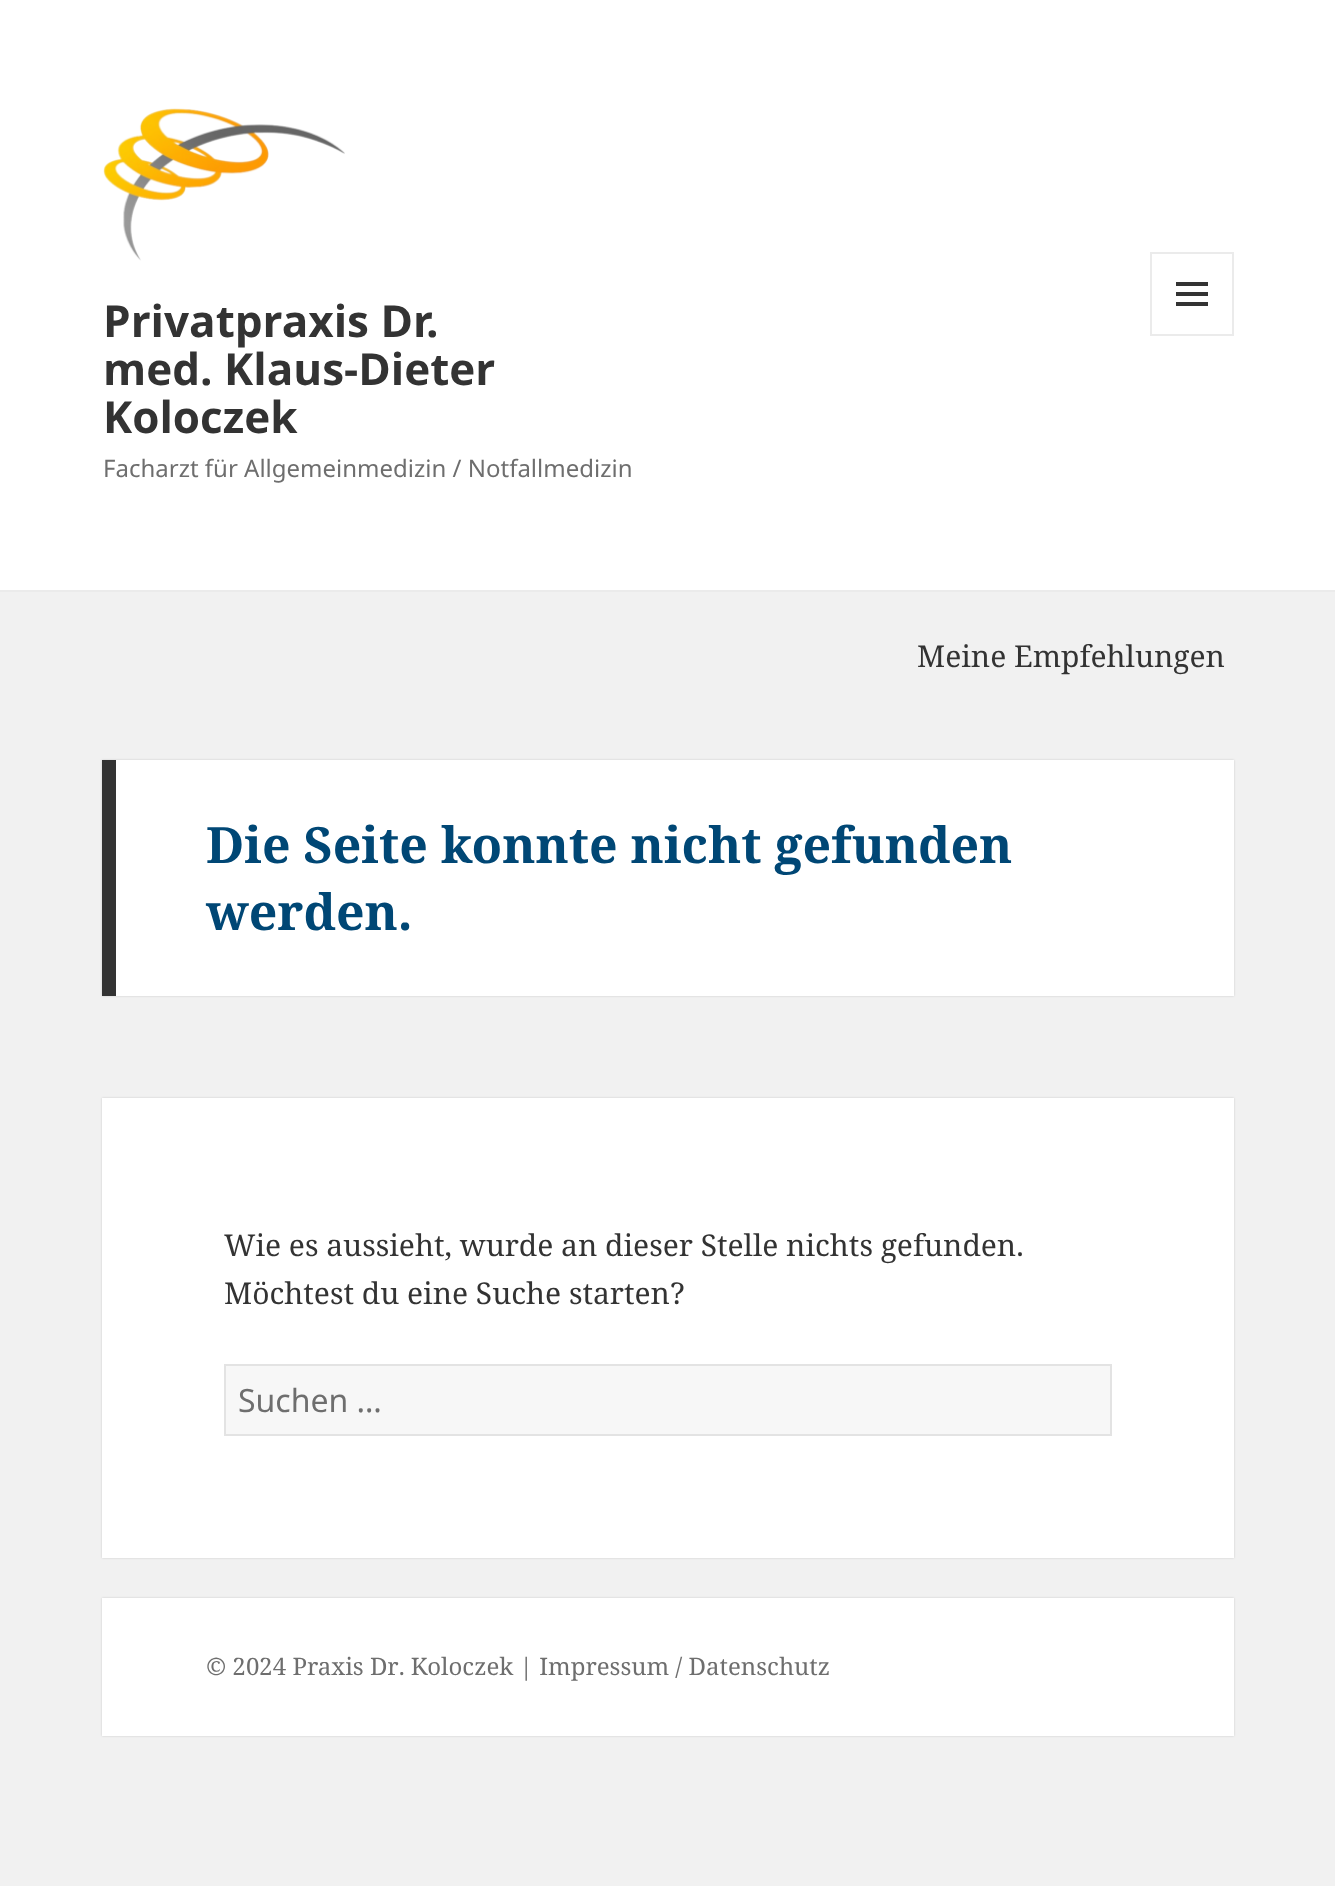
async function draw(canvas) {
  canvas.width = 1335
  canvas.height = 1886
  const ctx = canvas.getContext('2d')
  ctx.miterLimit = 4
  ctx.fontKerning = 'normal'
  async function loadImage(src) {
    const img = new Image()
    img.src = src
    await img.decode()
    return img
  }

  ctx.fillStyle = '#f1f1f1'
  ctx.fillRect(0, 0, 1335, 1886)
  ctx.fillStyle = '#fff'
  ctx.fillRect(0, 0, 1335, 590)
  ctx.fillStyle = '#ebebeb'
  ctx.fillRect(0, 590, 1335, 2)
  ctx.drawImage(await loadImage('image0.png'), 103, 108, 242, 153)
  ctx.strokeStyle = '#ebebeb'
  ctx.lineWidth = 2
  ctx.strokeRect(1151, 253, 82, 82)
  ctx.drawImage(await loadImage('image1.png'), 1176, 282, 32, 24)
  ctx.font = 'bold 44px Noto Sans'
  ctx.fillStyle = '#333'
  ctx.fillText('Privatpraxis Dr.', 103, 337)
  ctx.fillText('med. Klaus-Dieter', 103, 385)
  ctx.fillText('Koloczek', 103, 433)
  ctx.font = '24px Noto Sans'
  ctx.fillStyle = '#6e6e6e'
  ctx.fillText('Facharzt für Allgemeinmedizin / Notfallmedizin', 103, 477)
  ctx.font = '30px Noto Serif'
  ctx.fillStyle = '#333'
  ctx.fillText('Meine Empfehlungen', 917, 667)
  ctx.fillStyle = '#00000026'
  ctx.filter = 'blur(1px)'
  ctx.beginPath()
  ctx.rect(102, 760, 1132, 236)
  ctx.fill()
  ctx.filter = 'none'
  ctx.fillStyle = '#fff'
  ctx.fillRect(116, 760, 1118, 236)
  ctx.fillStyle = '#333'
  ctx.fillRect(102, 760, 14, 236)
  ctx.font = 'bold 50px Noto Serif'
  ctx.fillStyle = '#004775'
  ctx.fillText('Die Seite konnte nicht gefunden', 206, 863)
  ctx.fillText('werden.', 206, 930)
  ctx.fillStyle = '#00000026'
  ctx.filter = 'blur(1px)'
  ctx.beginPath()
  ctx.rect(102, 1098, 1132, 460)
  ctx.fill()
  ctx.filter = 'none'
  ctx.fillStyle = '#fff'
  ctx.fillRect(102, 1098, 1132, 460)
  ctx.font = '30px Noto Serif'
  ctx.fillStyle = '#333'
  ctx.fillText('Wie es aussieht, wurde an dieser Stelle nichts gefunden.', 224, 1256)
  ctx.fillText('Möchtest du eine Suche starten?', 224, 1304)
  ctx.fillStyle = '#f7f7f7'
  ctx.beginPath()
  ctx.rect(225, 1365, 886, 70)
  ctx.fill()
  ctx.strokeStyle = '#e3e3e3'
  ctx.stroke()
  ctx.font = '32px Noto Sans'
  ctx.fillStyle = '#6e6e6e'
  ctx.fillText('Suchen …', 238, 1412)
  ctx.fillStyle = '#00000026'
  ctx.filter = 'blur(1px)'
  ctx.beginPath()
  ctx.rect(102, 1598, 1132, 138)
  ctx.fill()
  ctx.filter = 'none'
  ctx.fillStyle = '#fff'
  ctx.fillRect(102, 1598, 1132, 138)
  ctx.font = '24px Noto Serif'
  ctx.fillStyle = '#6e6e6e'
  ctx.fillText('© 2024 Praxis Dr. Koloczek | Impressum / Datenschutz', 206, 1675)
}

draw(document.querySelector('canvas'))
